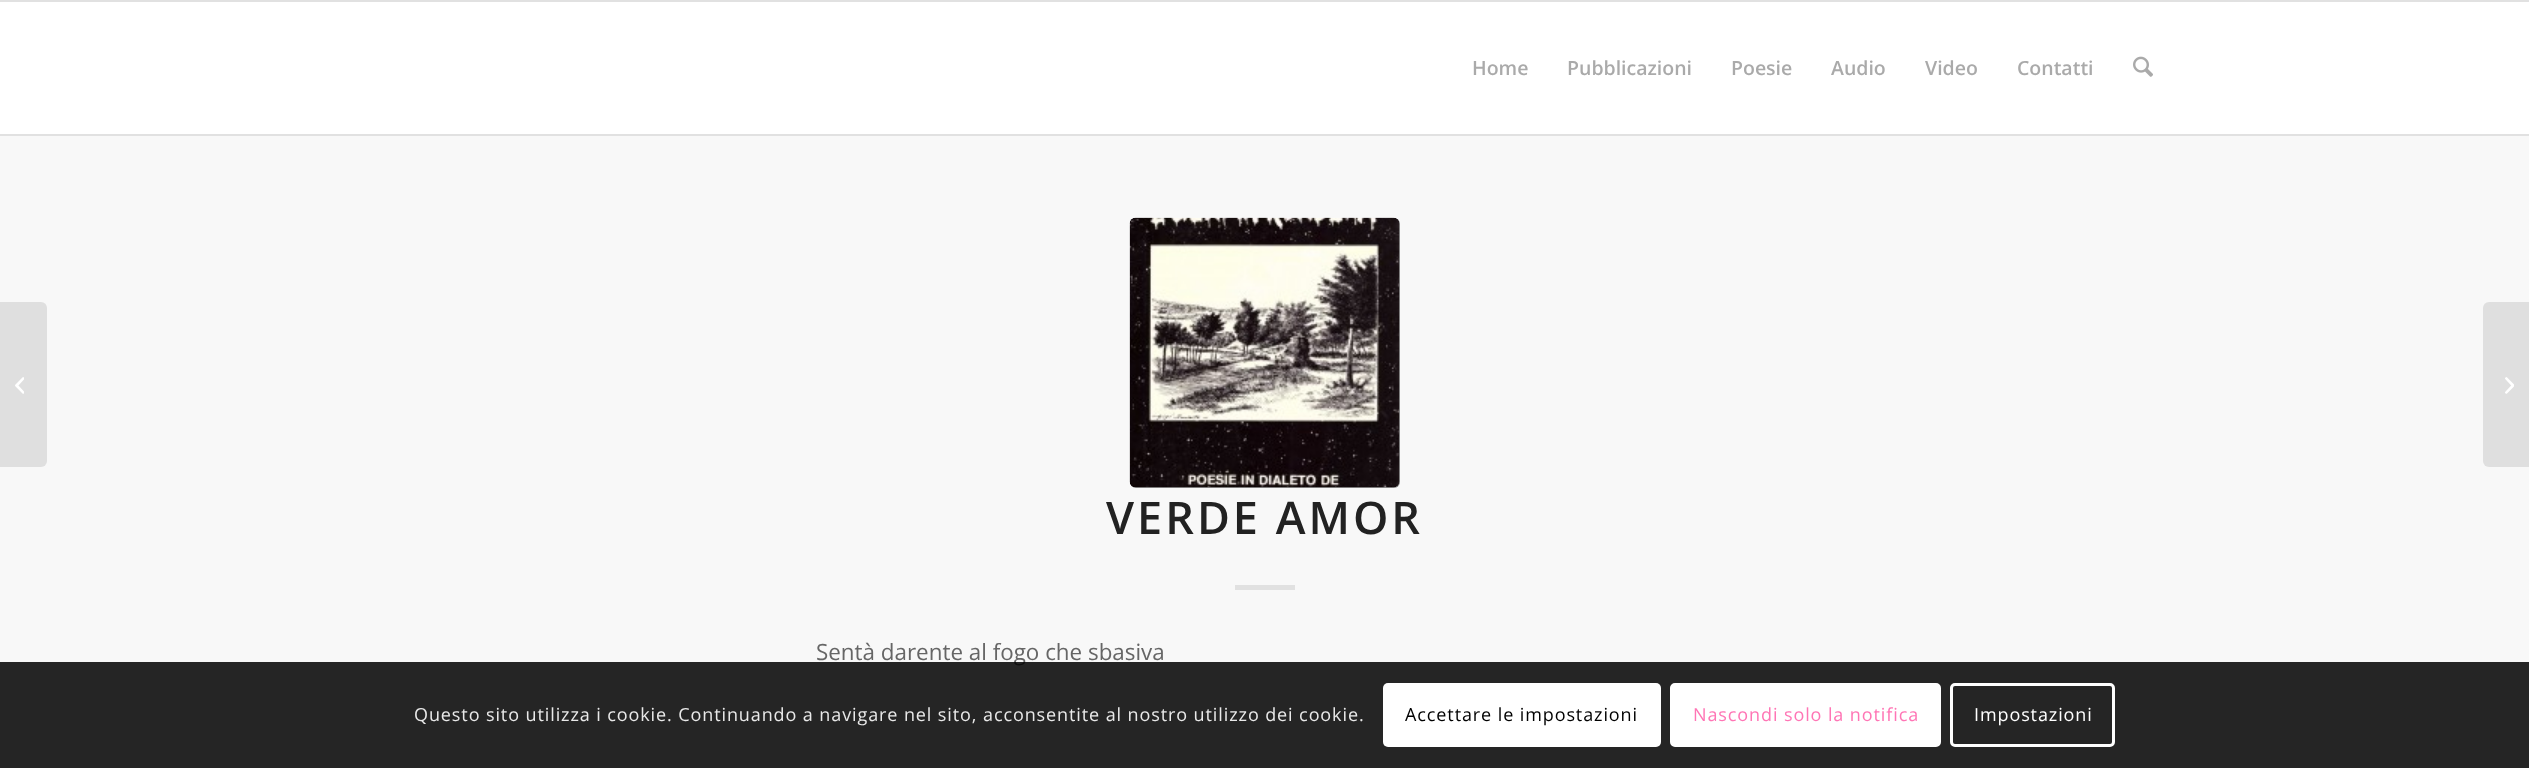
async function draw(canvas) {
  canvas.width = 2529
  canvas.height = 768
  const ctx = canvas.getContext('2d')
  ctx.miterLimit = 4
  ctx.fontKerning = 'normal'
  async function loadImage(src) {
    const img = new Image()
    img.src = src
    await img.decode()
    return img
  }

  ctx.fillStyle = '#fff'
  ctx.fillRect(0, 0, 2529, 768)
  ctx.fillStyle = '#e1e1e1'
  ctx.fillRect(0, 0, 2529, 2)
  ctx.fillRect(0, 134, 2529, 2)
  ctx.font = '600 19.5px Open Sans'
  ctx.fillStyle = '#aaa'
  ctx.fillText('Home', 1472, 75)
  ctx.fillText('Pubblicazioni', 1567, 75)
  ctx.fillText('Poesie', 1731, 75)
  ctx.fillText('Audio', 1831, 75)
  ctx.fillText('Video', 1925, 75)
  ctx.fillText('Contatti', 2017, 75)
  ctx.drawImage(await loadImage('image0.png'), 2133, 56, 20, 21)
  ctx.fillStyle = '#f8f8f8'
  ctx.fillRect(0, 136, 2529, 632)
  ctx.fillStyle = '#dfdfdf'
  ctx.beginPath()
  ctx.roundRect(0, 302, 47, 165, [0, 6, 6, 0])
  ctx.fill()
  ctx.drawImage(await loadImage('image1.png'), 15, 377, 9, 17)
  ctx.beginPath()
  ctx.roundRect(2483, 302, 46, 165, [6, 0, 0, 6])
  ctx.fill()
  ctx.drawImage(await loadImage('image2.png'), 2505, 377, 9, 17)
  ctx.fillStyle = '#8d8d8d'
  ctx.beginPath()
  ctx.roundRect(1130, 218, 270, 270, 6)
  ctx.fill()
  ctx.drawImage(await loadImage('image3.png'), 1129, 217, 271, 271)
  ctx.letterSpacing = '3px'
  ctx.font = '600 45px Open Sans'
  ctx.fillStyle = '#222'
  ctx.fillText('VERDE AMOR', 1106, 534)
  ctx.fillStyle = '#e1e1e1'
  ctx.fillRect(1235, 585, 60, 5)
  ctx.letterSpacing = '0px'
  ctx.font = '22.4px Open Sans'
  ctx.fillStyle = '#666'
  ctx.fillText('Sentà darente al fogo che sbasiva', 816, 660)
  ctx.fillStyle = '#000000d9'
  ctx.fillRect(0, 662, 2529, 106)
  ctx.letterSpacing = '0.9px'
  ctx.font = '18px Open Sans'
  ctx.fillStyle = '#e9e9e9'
  ctx.fillText('Questo sito utilizza i cookie. Continuando a navigare nel sito, acconsentite al nostro utilizzo dei cookie.', 414, 721)
  ctx.fillStyle = '#fff'
  ctx.beginPath()
  ctx.roundRect(1383, 683, 278, 64, 5)
  ctx.fill()
  ctx.fillStyle = '#000'
  ctx.fillText('Accettare le impostazioni', 1405, 721)
  ctx.fillStyle = '#fff'
  ctx.beginPath()
  ctx.roundRect(1671.5, 684.5, 268, 61, 3.5)
  ctx.fill()
  ctx.strokeStyle = '#fff'
  ctx.lineWidth = 3
  ctx.stroke()
  ctx.fillStyle = '#ff75b5'
  ctx.fillText('Nascondi solo la notifica', 1693, 721)
  ctx.beginPath()
  ctx.roundRect(1951.5, 684.5, 162, 61, 3.5)
  ctx.stroke()
  ctx.fillStyle = '#fff'
  ctx.fillText('Impostazioni', 1974, 721)
}

draw(document.querySelector('canvas'))
